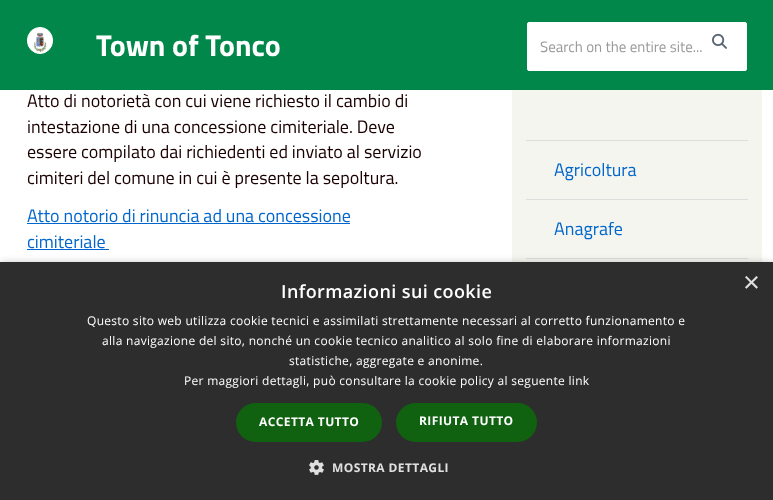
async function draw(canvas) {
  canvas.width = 773
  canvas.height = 500
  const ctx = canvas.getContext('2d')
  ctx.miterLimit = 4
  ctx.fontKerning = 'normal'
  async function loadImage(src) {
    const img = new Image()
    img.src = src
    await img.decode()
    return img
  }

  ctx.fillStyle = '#fff'
  ctx.fillRect(0, 0, 773, 500)
  ctx.fillStyle = '#02874a'
  ctx.fillRect(0, 0, 773, 90)
  ctx.fillStyle = '#fff'
  ctx.beginPath()
  ctx.roundRect(27.5, 27.5, 25, 26, 12.5)
  ctx.fill()
  ctx.strokeStyle = '#fff'
  ctx.stroke()
  ctx.drawImage(await loadImage('image0.png'), 33, 32, 14, 21)
  ctx.font = 'bold 30px Titillium Web'
  ctx.fillText('Town of Tonco', 96, 56)
  ctx.beginPath()
  ctx.roundRect(527.5, 22.5, 219, 48, 1.5)
  ctx.fill()
  ctx.stroke()
  ctx.font = '15px Titillium Web'
  ctx.fillStyle = '#999'
  ctx.fillText('Search on the entire site...', 540, 52)
  ctx.drawImage(await loadImage('image1.png'), 712, 33, 15, 16)
  ctx.font = '18px Titillium Web'
  ctx.fillStyle = '#1a0000'
  ctx.fillText('Atto di notorietà con cui viene richiesto il cambio di', 27, 107)
  ctx.fillText('intestazione di una concessione cimiteriale. Deve', 27, 133)
  ctx.fillText('essere compilato dai richiedenti ed inviato al servizio', 27, 158)
  ctx.fillText('cimiteri del comune in cui è presente la sepoltura.', 27, 184)
  ctx.fillStyle = '#06c'
  ctx.fillText('Atto notorio di rinuncia ad una concessione', 27, 222)
  ctx.fillRect(27, 223, 323, 1)
  ctx.fillText('cimiteriale', 27, 248)
  ctx.fillRect(27, 249, 82, 1)
  ctx.fillStyle = '#f5f5f0'
  ctx.fillRect(512, 90, 250, 172)
  ctx.fillStyle = '#ddd'
  ctx.fillRect(526, 140, 222, 1)
  ctx.fillRect(526, 199, 222, 1)
  ctx.fillStyle = '#06c'
  ctx.fillText('Agricoltura', 554, 176)
  ctx.fillStyle = '#ddd'
  ctx.fillRect(526, 258, 222, 1)
  ctx.fillStyle = '#06c'
  ctx.fillText('Anagrafe', 554, 235)
  ctx.fillStyle = '#00000059'
  ctx.filter = 'blur(4px)'
  ctx.beginPath()
  ctx.rect(1, 264, 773, 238)
  ctx.fill()
  ctx.filter = 'none'
  ctx.fillStyle = '#2d2d2d'
  ctx.fillRect(0, 262, 773, 238)
  ctx.font = '29px Liberation Sans'
  ctx.fillStyle = '#e0e0e0'
  ctx.fillText('×', 743, 292)
  ctx.letterSpacing = '0.4px'
  ctx.font = '600 18px Open Sans'
  ctx.fillStyle = '#fff'
  ctx.fillText('Informazioni sui cookie', 281, 298)
  ctx.letterSpacing = '0.3px'
  ctx.font = '12px Open Sans'
  ctx.fillText('Questo sito web utilizza cookie tecnici e assimilati strettamente necessari al corretto funzionamento e', 87, 325)
  ctx.fillText('alla navigazione del sito, nonché un cookie tecnico analitico al solo fine di elaborare informazioni', 102, 345)
  ctx.fillText('statistiche, aggregate e anonime.', 289, 365)
  ctx.fillText('Per maggiori dettagli, può consultare la cookie policy al seguente link', 184, 385)
  ctx.fillStyle = '#106110'
  ctx.beginPath()
  ctx.roundRect(236, 403, 146, 39, 19.5)
  ctx.fill()
  ctx.letterSpacing = '0.4px'
  ctx.font = 'bold 12px Open Sans'
  ctx.fillStyle = '#fff'
  ctx.fillText('ACCETTA TUTTO', 259, 426)
  ctx.fillStyle = '#106110'
  ctx.beginPath()
  ctx.roundRect(396, 403, 141, 39, 19.5)
  ctx.fill()
  ctx.fillStyle = '#fff'
  ctx.fillText('RIFIUTA TUTTO', 419, 425)
  ctx.drawImage(await loadImage('image2.png'), 309, 460, 15, 15)
  ctx.fillStyle = '#e0e0e0'
  ctx.fillText('MOSTRA DETTAGLI', 332, 472)
}

draw(document.querySelector('canvas'))
